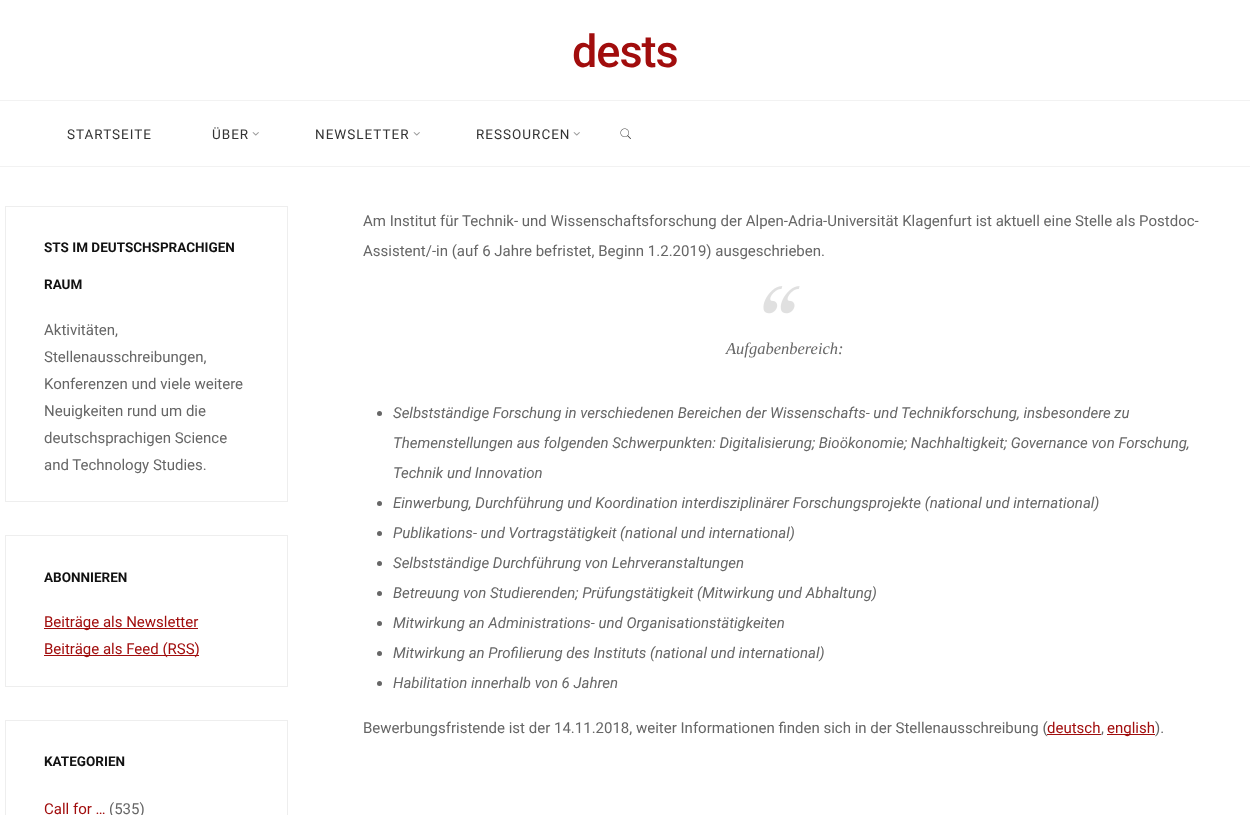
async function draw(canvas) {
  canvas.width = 1250
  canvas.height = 815
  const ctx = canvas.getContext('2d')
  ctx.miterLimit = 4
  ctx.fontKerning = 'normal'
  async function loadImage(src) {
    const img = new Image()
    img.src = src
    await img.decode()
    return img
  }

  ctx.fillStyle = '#fff'
  ctx.fillRect(0, 0, 1250, 815)
  ctx.letterSpacing = '-1px'
  ctx.font = '500 45px Roboto'
  ctx.fillStyle = '#a10d0d'
  ctx.fillText('dests', 572, 67)
  ctx.fillStyle = '#f2f2f2'
  ctx.fillRect(0, 100, 1250, 1)
  ctx.fillRect(0, 166, 1250, 1)
  ctx.letterSpacing = '1px'
  ctx.font = '13.5px Roboto'
  ctx.fillStyle = '#333'
  ctx.fillText('STARTSEITE', 67, 139)
  ctx.fillText('ÜBER', 212, 139)
  ctx.drawImage(await loadImage('image0.png'), 252, 132, 7, 4)
  ctx.fillText('NEWSLETTER', 315, 139)
  ctx.drawImage(await loadImage('image0.png'), 413, 132, 7, 4)
  ctx.fillText('RESSOURCEN', 476, 139)
  ctx.drawImage(await loadImage('image0.png'), 573, 132, 7, 4)
  ctx.drawImage(await loadImage('image1.png'), 620, 128, 11, 11)
  ctx.strokeStyle = '#eee'
  ctx.strokeRect(5.5, 206.5, 282, 295)
  ctx.letterSpacing = '0px'
  ctx.font = 'bold 13.5px Roboto'
  ctx.fillStyle = '#111'
  ctx.fillText('STS IM DEUTSCHSPRACHIGEN', 44, 252)
  ctx.fillText('RAUM', 44, 289)
  ctx.font = '15px Roboto'
  ctx.fillStyle = '#666'
  ctx.fillText('Aktivitäten,', 44, 335)
  ctx.fillText('Stellenausschreibungen,', 44, 362)
  ctx.fillText('Konferenzen und viele weitere', 44, 389)
  ctx.fillText('Neuigkeiten rund um die', 44, 416)
  ctx.fillText('deutschsprachigen Science', 44, 443)
  ctx.fillText('and Technology Studies.', 44, 470)
  ctx.strokeRect(5.5, 535.5, 282, 151)
  ctx.font = 'bold 13.5px Roboto'
  ctx.fillStyle = '#111'
  ctx.fillText('ABONNIEREN', 44, 582)
  ctx.fillStyle = '#a10d0d'
  ctx.fillRect(44, 628, 154, 1)
  ctx.font = '15px Roboto'
  ctx.fillText('Beiträge als Newsletter', 44, 627)
  ctx.fillRect(44, 655, 155, 1)
  ctx.fillText('Beiträge als Feed (RSS)', 44, 654)
  ctx.strokeRect(5.5, 720.5, 282, 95)
  ctx.font = 'bold 13.5px Roboto'
  ctx.fillStyle = '#111'
  ctx.fillText('KATEGORIEN', 44, 766)
  ctx.font = '15px Roboto'
  ctx.fillStyle = '#a10d0d'
  ctx.fillText('Call for …', 44, 814)
  ctx.fillStyle = '#666'
  ctx.fillText('(535)', 109, 814)
  ctx.fillText('Am Institut für Technik- und Wissenschaftsforschung der Alpen-Adria-Universität Klagenfurt ist aktuell eine Stelle als Postdoc-', 363, 226)
  ctx.fillText('Assistent/-in (auf 6 Jahre befristet, Beginn 1.2.2019) ausgeschrieben.', 363, 256)
  ctx.drawImage(await loadImage('image2.png'), 763, 286, 37, 28)
  ctx.font = 'italic 16.5px Liberation Serif'
  ctx.fillText('Aufgabenbereich:', 726, 354)
  ctx.beginPath()
  ctx.arc(379.5, 413.5, 2.5, 0, 2 * Math.PI)
  ctx.fill()
  ctx.font = 'italic 15px Roboto'
  ctx.fillText('Selbstständige Forschung in verschiedenen Bereichen der Wissenschafts- und Technikforschung, insbesondere zu', 393, 418)
  ctx.fillText('Themenstellungen aus folgenden Schwerpunkten: Digitalisierung; Bioökonomie; Nachhaltigkeit; Governance von Forschung,', 393, 448)
  ctx.fillText('Technik und Innovation', 393, 478)
  ctx.beginPath()
  ctx.arc(379.5, 503.5, 2.5, 0, 2 * Math.PI)
  ctx.fill()
  ctx.fillText('Einwerbung, Durchführung und Koordination interdisziplinärer Forschungsprojekte (national und international)', 393, 508)
  ctx.beginPath()
  ctx.arc(379.5, 533.5, 2.5, 0, 2 * Math.PI)
  ctx.fill()
  ctx.fillText('Publikations- und Vortragstätigkeit (national und international)', 393, 538)
  ctx.beginPath()
  ctx.arc(379.5, 563.5, 2.5, 0, 2 * Math.PI)
  ctx.fill()
  ctx.fillText('Selbstständige Durchführung von Lehrveranstaltungen', 393, 568)
  ctx.beginPath()
  ctx.arc(379.5, 593.5, 2.5, 0, 2 * Math.PI)
  ctx.fill()
  ctx.fillText('Betreuung von Studierenden; Prüfungstätigkeit (Mitwirkung und Abhaltung)', 393, 598)
  ctx.beginPath()
  ctx.arc(379.5, 623.5, 2.5, 0, 2 * Math.PI)
  ctx.fill()
  ctx.fillText('Mitwirkung an Administrations- und Organisationstätigkeiten', 393, 628)
  ctx.beginPath()
  ctx.arc(379.5, 653.5, 2.5, 0, 2 * Math.PI)
  ctx.fill()
  ctx.fillText('Mitwirkung an Profilierung des Instituts (national und international)', 393, 658)
  ctx.beginPath()
  ctx.arc(379.5, 683.5, 2.5, 0, 2 * Math.PI)
  ctx.fill()
  ctx.fillText('Habilitation innerhalb von 6 Jahren', 393, 688)
  ctx.font = '15px Roboto'
  ctx.fillText('Bewerbungsfristende ist der 14.11.2018, weiter Informationen finden sich in der Stellenausschreibung (', 363, 733)
  ctx.fillStyle = '#a10d0d'
  ctx.fillText('deutsch', 1047, 733)
  ctx.fillRect(1047, 734, 54, 1)
  ctx.fillStyle = '#666'
  ctx.fillText(',', 1101, 733)
  ctx.fillStyle = '#a10d0d'
  ctx.fillRect(1107, 734, 48, 1)
  ctx.fillText('english', 1107, 733)
  ctx.fillStyle = '#666'
  ctx.fillText(').', 1155, 733)
}

draw(document.querySelector('canvas'))
